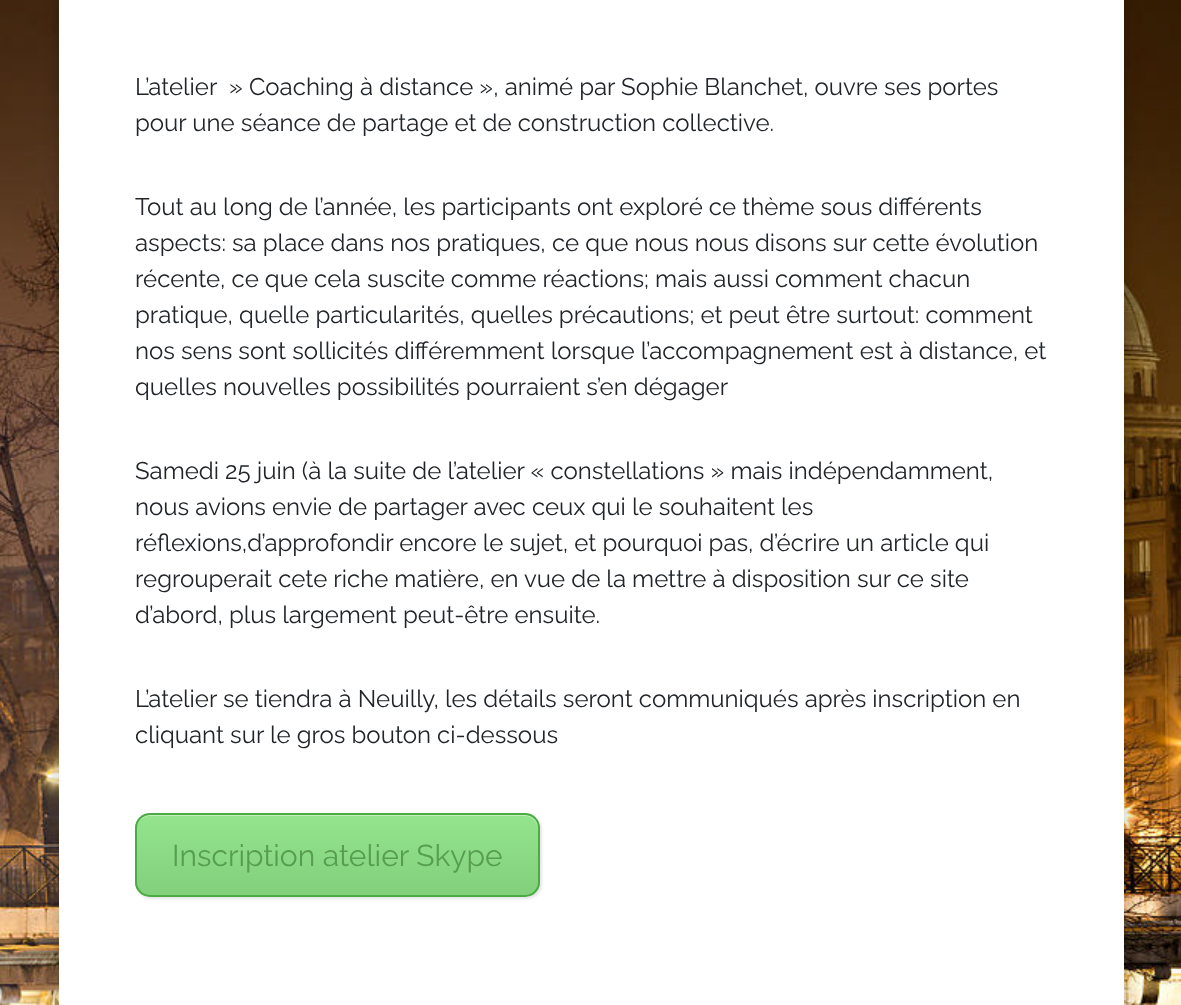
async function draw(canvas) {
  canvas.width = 1181
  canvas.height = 1005
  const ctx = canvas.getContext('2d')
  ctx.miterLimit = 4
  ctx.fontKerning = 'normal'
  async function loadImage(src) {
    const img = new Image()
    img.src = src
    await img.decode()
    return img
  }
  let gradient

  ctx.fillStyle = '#fff'
  ctx.fillRect(0, 0, 1181, 1005)
  ctx.drawImage(await loadImage('image0.png'), 0, 0, 1181, 1005)
  ctx.fillStyle = '#00000033'
  ctx.filter = 'blur(7.5px)'
  ctx.beginPath()
  ctx.rect(59, -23, 1065, 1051)
  ctx.fill()
  ctx.filter = 'none'
  ctx.fillStyle = '#fff'
  ctx.fillRect(59, 0, 1065, 1005)
  ctx.font = '24px Raleway'
  ctx.fillStyle = '#212529'
  ctx.fillText('L’atelier  » Coaching à distance », animé par Sophie Blanchet, ouvre ses portes', 135, 95)
  ctx.fillText('pour une séance de partage et de construction collective.', 135, 131)
  ctx.fillText('Tout au long de l’année, les participants ont exploré ce thème sous différents', 135, 215)
  ctx.fillText('aspects: sa place dans nos pratiques, ce que nous nous disons sur cette évolution', 135, 251)
  ctx.fillText('récente, ce que cela suscite comme réactions; mais aussi comment chacun', 135, 287)
  ctx.fillText('pratique, quelle particularités, quelles précautions; et peut être surtout: comment', 135, 323)
  ctx.fillText('nos sens sont sollicités différemment lorsque l’accompagnement est à distance, et', 135, 359)
  ctx.fillText('quelles nouvelles possibilités pourraient s’en dégager', 135, 395)
  ctx.fillText('Samedi 25 juin (à la suite de l’atelier « constellations » mais indépendamment,', 135, 479)
  ctx.fillText('nous avions envie de partager avec ceux qui le souhaitent les', 135, 515)
  ctx.fillText('réflexions,d’approfondir encore le sujet, et pourquoi pas, d’écrire un article qui', 135, 551)
  ctx.fillText('regrouperait cete riche matière, en vue de la mettre à disposition sur ce site', 135, 587)
  ctx.fillText('d’abord, plus largement peut-être ensuite.', 135, 623)
  ctx.fillText('L’atelier se tiendra à Neuilly, les détails seront communiqués après inscription en', 135, 707)
  ctx.fillText('cliquant sur le gros bouton ci-dessous', 135, 743)
  ctx.fillStyle = '#0000001a'
  ctx.filter = 'blur(1px)'
  ctx.beginPath()
  ctx.roundRect(137, 815, 405, 84, 15)
  ctx.fill()
  ctx.filter = 'none'
  ctx.save()
  ctx.beginPath()
  ctx.roundRect(135, 813, 405, 84, 15)
  ctx.clip()
  gradient = ctx.createLinearGradient(338, 815, 338, 896)
  gradient.addColorStop(0, '#94e48d')
  gradient.addColorStop(1, '#82cf7c')
  ctx.fillStyle = gradient
  ctx.fillRect(135, 815, 405, 81)
  ctx.restore()
  ctx.fillStyle = '#ffffff66'
  ctx.beginPath()
  ctx.moveTo(150, 816)
  ctx.lineTo(525, 816)
  ctx.bezierCurveTo(532, 816, 538, 822, 538, 830)
  ctx.lineTo(538, 884)
  ctx.bezierCurveTo(538, 886, 537, 888, 536, 890)
  ctx.bezierCurveTo(538, 888, 539, 885, 539, 882)
  ctx.lineTo(539, 829)
  ctx.bezierCurveTo(539, 821, 533, 815, 525, 815)
  ctx.lineTo(151, 815)
  ctx.bezierCurveTo(146, 815, 142, 817, 140, 820)
  ctx.bezierCurveTo(143, 818, 146, 816, 150, 816)
  ctx.closePath()
  ctx.fill()
  ctx.beginPath()
  ctx.roundRect(136, 814, 403, 82, 14)
  ctx.strokeStyle = '#4dab46'
  ctx.lineWidth = 2
  ctx.stroke()
  ctx.font = '30px Raleway'
  ctx.fillStyle = '#569d51'
  ctx.fillText('Inscription atelier Skype', 172, 866)
}

draw(document.querySelector('canvas'))
